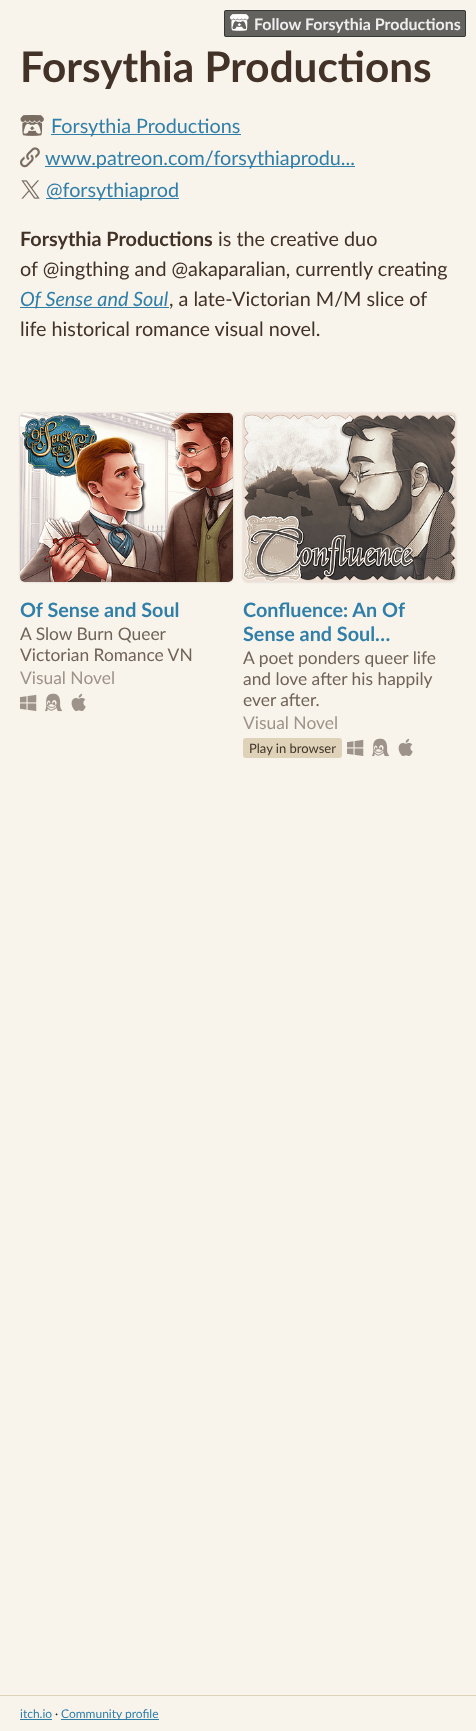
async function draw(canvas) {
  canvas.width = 476
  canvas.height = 1731
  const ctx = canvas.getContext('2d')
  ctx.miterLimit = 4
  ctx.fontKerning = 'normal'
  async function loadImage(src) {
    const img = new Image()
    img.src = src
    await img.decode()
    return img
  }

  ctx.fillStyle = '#f8f4ec'
  ctx.fillRect(0, 0, 476, 1731)
  ctx.beginPath()
  ctx.roundRect(223.5, 9.5, 243, 28, 2.5)
  ctx.strokeStyle = '#f9f6f0'
  ctx.stroke()
  ctx.fillStyle = '#63625e'
  ctx.beginPath()
  ctx.roundRect(224, 10, 242, 27, 2)
  ctx.fill()
  ctx.beginPath()
  ctx.roundRect(224.5, 10.5, 241, 26, 1.5)
  ctx.strokeStyle = '#0a0a0a80'
  ctx.stroke()
  ctx.drawImage(await loadImage('image0.png'), 230, 14, 19, 17)
  ctx.font = 'bold 16px Lato'
  ctx.fillStyle = '#eee'
  ctx.fillText('Follow Forsythia Productions', 254, 30)
  ctx.font = 'bold 42.25px Lato'
  ctx.fillStyle = '#423227'
  ctx.fillText('Forsythia Productions', 20, 82)
  ctx.drawImage(await loadImage('image1.png'), 20, 115, 24, 21)
  ctx.fillStyle = '#307fa8'
  ctx.fillRect(51, 134, 190, 1)
  ctx.font = '19.8px Lato'
  ctx.fillText('Forsythia Productions', 51, 133)
  ctx.drawImage(await loadImage('image2.png'), 20, 147, 20, 21)
  ctx.fillRect(45, 166, 310, 1)
  ctx.fillText('www.patreon.com/forsythiaprodu...', 45, 165)
  ctx.drawImage(await loadImage('image3.png'), 21, 180, 19, 19)
  ctx.fillRect(46, 198, 133, 1)
  ctx.fillText('@forsythiaprod', 46, 197)
  ctx.font = 'bold 19.8px Lato'
  ctx.fillStyle = '#423227'
  ctx.fillText('Forsythia Productions', 20, 246)
  ctx.font = '19.8px Lato'
  ctx.fillText('is the creative duo', 218, 246)
  ctx.fillText('of @ingthing and @akaparalian, currently creating', 20, 276)
  ctx.fillStyle = '#307fa8'
  ctx.fillRect(20, 307, 149, 1)
  ctx.font = 'italic 19.8px Lato'
  ctx.fillText('Of Sense and Soul', 20, 306)
  ctx.font = '19.8px Lato'
  ctx.fillStyle = '#423227'
  ctx.fillText(', a late-Victorian M/M slice of', 169, 306)
  ctx.fillText('life historical romance visual novel.', 20, 336)
  ctx.fillStyle = '#00000026'
  ctx.filter = 'blur(1px)'
  ctx.beginPath()
  ctx.roundRect(20, 413, 213, 169, 5)
  ctx.fill()
  ctx.filter = 'none'
  ctx.drawImage(await loadImage('image4.png'), 20, 413, 213, 169)
  ctx.font = 'bold 19.8px Lato'
  ctx.fillStyle = '#307fa8'
  ctx.fillText('Of Sense and Soul', 20, 617)
  ctx.font = '17.4px Lato'
  ctx.fillStyle = '#706358'
  ctx.fillText('A Slow Burn Queer', 20, 640)
  ctx.fillText('Victorian Romance VN', 20, 661)
  ctx.fillStyle = '#9d938a'
  ctx.fillText('Visual Novel', 20, 684)
  ctx.drawImage(await loadImage('image5.png'), 20, 694, 17, 17)
  ctx.drawImage(await loadImage('image6.png'), 45, 693, 18, 19)
  ctx.drawImage(await loadImage('image7.png'), 71, 693, 15, 18)
  ctx.fillStyle = '#00000026'
  ctx.filter = 'blur(1px)'
  ctx.beginPath()
  ctx.roundRect(243, 413, 213, 169, 5)
  ctx.fill()
  ctx.filter = 'none'
  ctx.fillStyle = '#eedfd7'
  ctx.beginPath()
  ctx.roundRect(243, 413, 213, 169, 5)
  ctx.fill()
  ctx.drawImage(await loadImage('image8.png'), 243, 414, 213, 168)
  ctx.font = 'bold 19.8px Lato'
  ctx.fillStyle = '#307fa8'
  ctx.fillText('Confluence: An Of', 243, 617)
  ctx.fillText('Sense and Soul…', 243, 641)
  ctx.font = '17.4px Lato'
  ctx.fillStyle = '#706358'
  ctx.fillText('A poet ponders queer life', 243, 664)
  ctx.fillText('and love after his happily', 243, 685)
  ctx.fillText('ever after.', 243, 706)
  ctx.fillStyle = '#9d938a'
  ctx.fillText('Visual Novel', 243, 729)
  ctx.fillStyle = '#ded2b8'
  ctx.beginPath()
  ctx.roundRect(243, 738, 99, 20, 3)
  ctx.fill()
  ctx.font = '13px Lato'
  ctx.fillStyle = '#423227'
  ctx.fillText('Play in browser', 249, 753)
  ctx.drawImage(await loadImage('image5.png'), 347, 739, 17, 17)
  ctx.drawImage(await loadImage('image6.png'), 372, 738, 18, 19)
  ctx.drawImage(await loadImage('image7.png'), 398, 738, 15, 18)
  ctx.fillStyle = '#ded2b8'
  ctx.fillRect(0, 1695, 476, 1)
  ctx.font = '12px Lato'
  ctx.fillStyle = '#307fa8'
  ctx.fillText('itch.io', 20, 1718)
  ctx.fillRect(20, 1719, 32, 1)
  ctx.fillStyle = '#222'
  ctx.fillText('·', 55, 1718)
  ctx.fillStyle = '#307fa8'
  ctx.fillRect(61, 1719, 98, 1)
  ctx.fillText('Community profile', 61, 1718)
}

draw(document.querySelector('canvas'))
